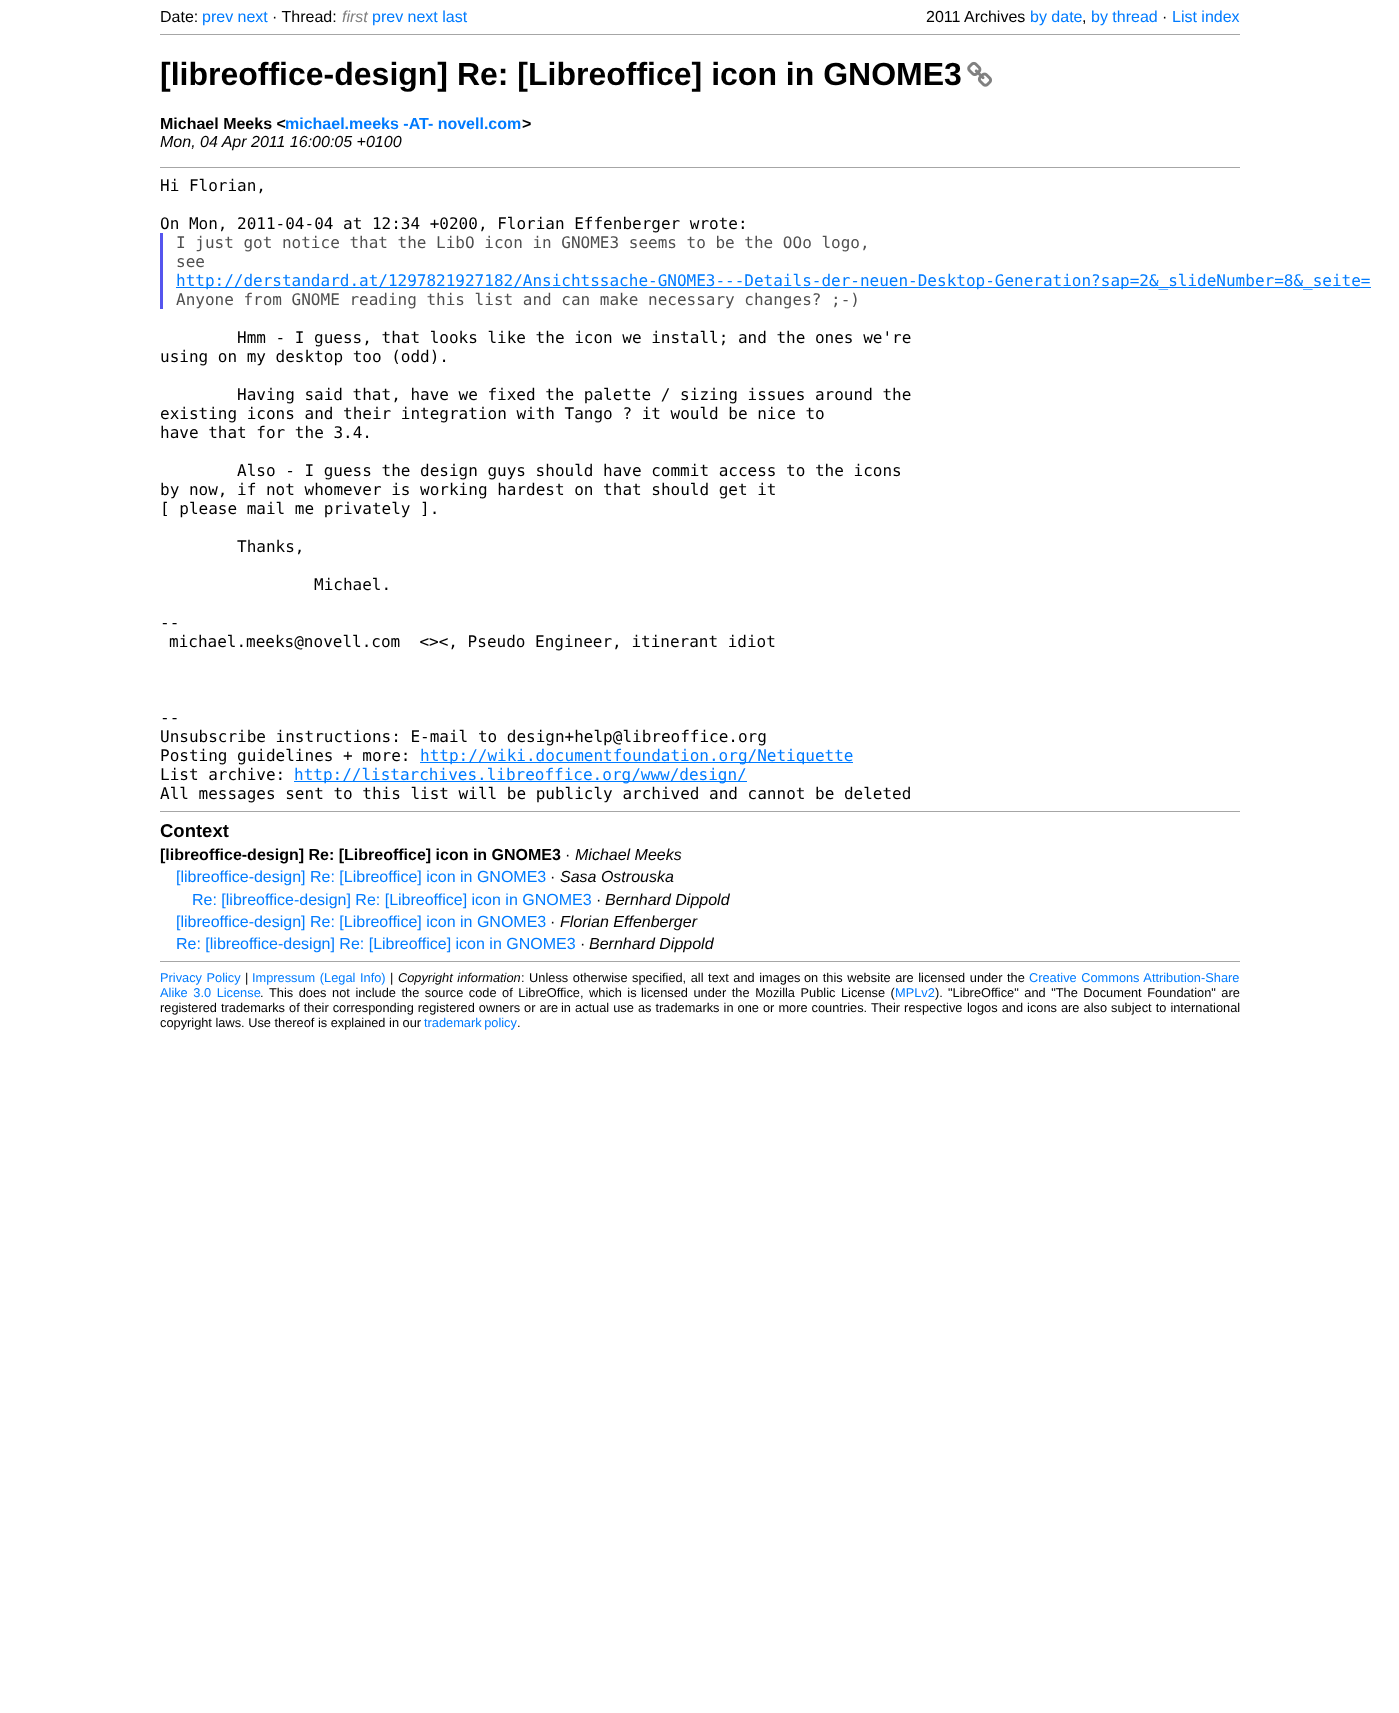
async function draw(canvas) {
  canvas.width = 1399
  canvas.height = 1713
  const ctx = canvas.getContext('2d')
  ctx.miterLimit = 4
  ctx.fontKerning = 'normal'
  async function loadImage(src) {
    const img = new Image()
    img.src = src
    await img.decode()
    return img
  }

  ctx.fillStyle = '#fff'
  ctx.fillRect(0, 0, 1399, 1713)
  ctx.font = '16px Liberation Sans'
  ctx.fillStyle = '#000'
  ctx.fillText('Date:', 160, 22)
  ctx.fillStyle = '#007bff'
  ctx.fillText('prev next', 202, 22)
  ctx.fillStyle = '#000'
  ctx.fillText('· Thread:', 272, 22)
  ctx.font = 'italic 16px Liberation Sans'
  ctx.fillStyle = '#808080'
  ctx.fillText('first', 342, 22)
  ctx.font = '16px Liberation Sans'
  ctx.fillStyle = '#007bff'
  ctx.fillText('prev next last', 372, 22)
  ctx.fillStyle = '#000'
  ctx.fillText('2011 Archives', 926, 22)
  ctx.fillStyle = '#007bff'
  ctx.fillText('by date', 1030, 22)
  ctx.fillText('by thread', 1091, 22)
  ctx.fillStyle = '#000'
  ctx.fillText('·', 1162, 22)
  ctx.fillStyle = '#007bff'
  ctx.fillText('List index', 1172, 22)
  ctx.fillStyle = '#000'
  ctx.fillText(',', 1082, 22)
  ctx.fillStyle = '#a6a6a6'
  ctx.fillRect(160, 34, 1080, 1)
  ctx.font = 'bold 32px Liberation Sans'
  ctx.fillStyle = '#000'
  ctx.fillText('[libreoffice-design] Re: [Libreoffice] icon in GNOME3', 160, 85)
  ctx.drawImage(await loadImage('image0.png'), 967, 61, 25, 26)
  ctx.font = 'bold 16px Liberation Sans'
  ctx.fillText('Michael Meeks <', 160, 129)
  ctx.fillStyle = '#007bff'
  ctx.fillText('michael.meeks -AT- novell.com', 285, 129)
  ctx.fillStyle = '#000'
  ctx.fillText('>', 522, 129)
  ctx.font = 'italic 16px Liberation Sans'
  ctx.fillText('Mon, 04 Apr 2011 16:00:05 +0100', 160, 147)
  ctx.fillStyle = '#a6a6a6'
  ctx.fillRect(160, 167, 1080, 1)
  ctx.font = '16px DejaVu Sans Mono'
  ctx.fillStyle = '#000'
  ctx.fillText('Hi Florian,', 160, 191)
  ctx.fillText('On Mon, 2011-04-04 at 12:34 +0200, Florian Effenberger wrote:', 160, 229)
  ctx.fillStyle = '#55e'
  ctx.fillRect(160, 233, 3, 76)
  ctx.fillStyle = '#505050'
  ctx.fillText('I just got notice that the LibO icon in GNOME3 seems to be the OOo logo,', 176, 248)
  ctx.fillText('see', 176, 267)
  ctx.fillStyle = '#007bff'
  ctx.fillRect(176, 287, 1195, 1)
  ctx.fillText('http://derstandard.at/1297821927182/Ansichtssache-GNOME3---Details-der-neuen-Desktop-Generation?sap=2&_slideNumber=8&_seite=', 176, 286)
  ctx.fillStyle = '#505050'
  ctx.fillText('Anyone from GNOME reading this list and can make necessary changes? ;-)', 176, 305)
  ctx.fillStyle = '#000'
  ctx.fillText('Hmm - I guess, that looks like the icon we install; and the ones we\'re', 237, 343)
  ctx.fillText('using on my desktop too (odd).', 160, 362)
  ctx.fillText('Having said that, have we fixed the palette / sizing issues around the', 237, 400)
  ctx.fillText('existing icons and their integration with Tango ? it would be nice to', 160, 419)
  ctx.fillText('have that for the 3.4.', 160, 438)
  ctx.fillText('Also - I guess the design guys should have commit access to the icons', 237, 476)
  ctx.fillText('by now, if not whomever is working hardest on that should get it', 160, 495)
  ctx.fillText('[ please mail me privately ].', 160, 514)
  ctx.fillText('Thanks,', 237, 552)
  ctx.fillText('Michael.', 314, 590)
  ctx.fillText('--', 160, 628)
  ctx.fillText('michael.meeks@novell.com  <><, Pseudo Engineer, itinerant idiot', 169, 647)
  ctx.fillText('--', 160, 723)
  ctx.fillText('Unsubscribe instructions: E-mail to design+help@libreoffice.org', 160, 742)
  ctx.fillText('Posting guidelines + more:', 160, 761)
  ctx.fillStyle = '#007bff'
  ctx.fillRect(420, 762, 433, 1)
  ctx.fillText('http://wiki.documentfoundation.org/Netiquette', 420, 761)
  ctx.fillStyle = '#000'
  ctx.fillText('List archive:', 160, 780)
  ctx.fillStyle = '#007bff'
  ctx.fillRect(294, 781, 453, 1)
  ctx.fillText('http://listarchives.libreoffice.org/www/design/', 294, 780)
  ctx.fillStyle = '#000'
  ctx.fillText('All messages sent to this list will be publicly archived and cannot be deleted', 160, 799)
  ctx.fillStyle = '#a6a6a6'
  ctx.fillRect(160, 811, 1080, 1)
  ctx.font = 'bold 18.5px Liberation Sans'
  ctx.fillStyle = '#000'
  ctx.fillText('Context', 160, 837)
  ctx.font = 'bold 16px Liberation Sans'
  ctx.fillText('[libreoffice-design] Re: [Libreoffice] icon in GNOME3', 160, 860)
  ctx.font = '16px Liberation Sans'
  ctx.fillText('·', 565, 860)
  ctx.font = 'italic 16px Liberation Sans'
  ctx.fillText('Michael Meeks', 575, 860)
  ctx.font = '16px Liberation Sans'
  ctx.fillStyle = '#007bff'
  ctx.fillText('[libreoffice-design] Re: [Libreoffice] icon in GNOME3', 176, 882)
  ctx.fillStyle = '#000'
  ctx.fillText('·', 550, 882)
  ctx.font = 'italic 16px Liberation Sans'
  ctx.fillText('Sasa Ostrouska', 560, 882)
  ctx.font = '16px Liberation Sans'
  ctx.fillStyle = '#007bff'
  ctx.fillText('Re: [libreoffice-design] Re: [Libreoffice] icon in GNOME3', 192, 905)
  ctx.fillStyle = '#000'
  ctx.fillText('·', 596, 905)
  ctx.font = 'italic 16px Liberation Sans'
  ctx.fillText('Bernhard Dippold', 605, 905)
  ctx.font = '16px Liberation Sans'
  ctx.fillStyle = '#007bff'
  ctx.fillText('[libreoffice-design] Re: [Libreoffice] icon in GNOME3', 176, 927)
  ctx.fillStyle = '#000'
  ctx.fillText('·', 550, 927)
  ctx.font = 'italic 16px Liberation Sans'
  ctx.fillText('Florian Effenberger', 560, 927)
  ctx.font = '16px Liberation Sans'
  ctx.fillStyle = '#007bff'
  ctx.fillText('Re: [libreoffice-design] Re: [Libreoffice] icon in GNOME3', 176, 949)
  ctx.fillStyle = '#000'
  ctx.fillText('·', 580, 949)
  ctx.font = 'italic 16px Liberation Sans'
  ctx.fillText('Bernhard Dippold', 589, 949)
  ctx.fillStyle = '#a6a6a6'
  ctx.fillRect(160, 961, 1080, 1)
  ctx.wordSpacing = '1px'
  ctx.font = '12.8px Liberation Sans'
  ctx.fillStyle = '#007bff'
  ctx.fillText('Privacy Policy', 160, 982)
  ctx.wordSpacing = '0px'
  ctx.fillStyle = '#000'
  ctx.fillText('|', 245, 982)
  ctx.wordSpacing = '1px'
  ctx.fillStyle = '#007bff'
  ctx.fillText('Impressum (Legal Info)', 252, 982)
  ctx.wordSpacing = '0px'
  ctx.fillStyle = '#000'
  ctx.fillText('|', 390, 982)
  ctx.wordSpacing = '1px'
  ctx.font = 'italic 12.8px Liberation Sans'
  ctx.fillText('Copyright information', 398, 982)
  ctx.font = '12.8px Liberation Sans'
  ctx.fillText(': Unless otherwise specified, all text and images', 521, 982)
  ctx.fillText('on this website are licensed under the', 804, 982)
  ctx.fillStyle = '#007bff'
  ctx.fillText('Creative Commons Attribution-Share', 1029, 982)
  ctx.wordSpacing = '2px'
  ctx.fillText('Alike 3.0 License', 160, 997)
  ctx.wordSpacing = '0px'
  ctx.fillStyle = '#000'
  ctx.fillText('.', 260, 997)
  ctx.wordSpacing = '2px'
  ctx.fillText('This does not include the source code of LibreOffice, which is', 269, 997)
  ctx.fillText('licensed under the Mozilla Public License (', 641, 997)
  ctx.wordSpacing = '0px'
  ctx.fillStyle = '#007bff'
  ctx.fillText('MPLv2', 895, 997)
  ctx.fillStyle = '#000'
  ctx.fillText(').', 935, 997)
  ctx.wordSpacing = '2px'
  ctx.fillText('"LibreOffice" and "The Document Foundation" are', 948, 997)
  ctx.wordSpacing = '0.5px'
  ctx.fillText('registered trademarks of their corresponding registered owners or are', 160, 1012)
  ctx.fillText('in actual use as trademarks in one or more countries. Their respective', 561, 1012)
  ctx.fillText('logos and icons are also subject to international', 967, 1012)
  ctx.wordSpacing = '0px'
  ctx.fillText('copyright laws. Use thereof is explained in our', 160, 1027)
  ctx.wordSpacing = '-1px'
  ctx.fillStyle = '#007bff'
  ctx.fillText('trademark policy', 424, 1027)
  ctx.wordSpacing = '0px'
  ctx.fillStyle = '#000'
  ctx.fillText('.', 517, 1027)
}

draw(document.querySelector('canvas'))
